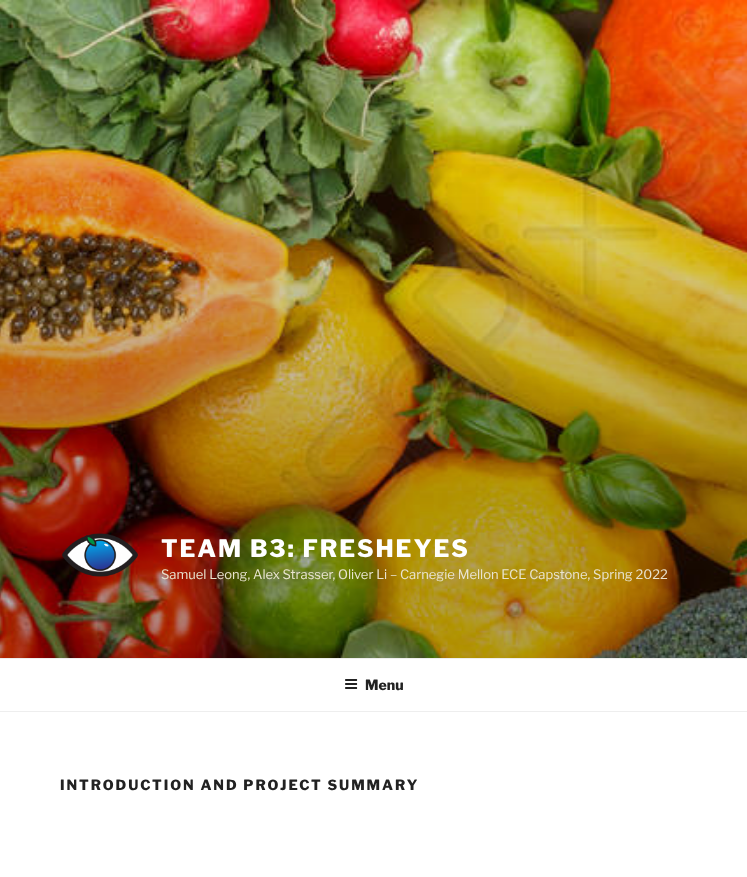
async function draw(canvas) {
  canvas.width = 747
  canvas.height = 877
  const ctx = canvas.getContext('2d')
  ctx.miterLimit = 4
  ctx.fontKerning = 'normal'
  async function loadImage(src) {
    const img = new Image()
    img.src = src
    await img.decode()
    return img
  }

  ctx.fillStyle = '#fff'
  ctx.fillRect(0, 0, 747, 877)
  ctx.drawImage(await loadImage('image0.png'), 0, 0, 747, 658)
  ctx.drawImage(await loadImage('image1.png'), 62, 533, 76, 44)
  ctx.letterSpacing = '1.9px'
  ctx.font = '800 24px Libre Franklin'
  ctx.fillText('TEAM B3: FRESHEYES', 161, 557)
  ctx.letterSpacing = '0px'
  ctx.font = '13px Libre Franklin'
  ctx.fillStyle = '#e9e4d0'
  ctx.fillText('Samuel Leong, Alex Strasser, Oliver Li – Carnegie Mellon ECE Capstone, Spring 2022', 161, 579)
  ctx.fillStyle = '#eee'
  ctx.fillRect(0, 658, 747, 1)
  ctx.fillRect(0, 711, 747, 1)
  ctx.drawImage(await loadImage('image2.png'), 345, 679, 13, 10)
  ctx.font = '800 14px Libre Franklin'
  ctx.fillStyle = '#222'
  ctx.fillText('Menu', 365, 690)
  ctx.letterSpacing = '1.95px'
  ctx.fillText('INTRODUCTION AND PROJECT SUMMARY', 60, 790)
}

draw(document.querySelector('canvas'))
